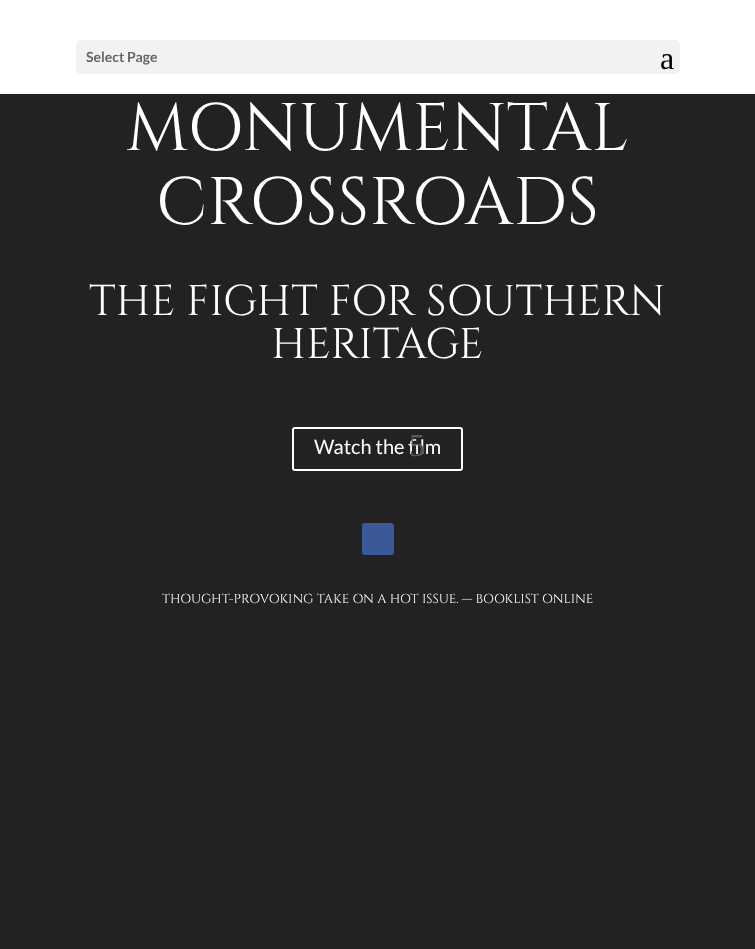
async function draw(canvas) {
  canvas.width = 755
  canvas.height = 949
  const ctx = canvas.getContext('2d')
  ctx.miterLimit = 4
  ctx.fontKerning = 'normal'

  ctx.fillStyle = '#fff'
  ctx.fillRect(0, 0, 755, 949)
  ctx.fillStyle = '#1f1f1f'
  ctx.fillRect(0, 94, 755, 1)
  ctx.fillStyle = '#f2f2f2'
  ctx.beginPath()
  ctx.roundRect(76, 40, 604, 34, 5)
  ctx.fill()
  ctx.font = 'bold 14px Lato'
  ctx.fillStyle = '#666'
  ctx.fillText('Select Page', 86, 62)
  ctx.font = '32px Liberation Serif'
  ctx.fillStyle = '#000'
  ctx.fillText('a', 660, 69)
  ctx.fillStyle = '#222'
  ctx.fillRect(0, 95, 755, 854)
  ctx.font = '67px Cinzel'
  ctx.fillStyle = '#fff'
  ctx.fillText('MONUMENTAL', 126, 150)
  ctx.fillText('CROSSROADS', 156, 224)
  ctx.font = '43px Cinzel'
  ctx.fillText('THE FIGHT FOR SOUTHERN', 89, 315)
  ctx.fillText('HERITAGE', 271, 358)
  ctx.beginPath()
  ctx.roundRect(293, 428, 169, 42, 2)
  ctx.strokeStyle = '#fff'
  ctx.lineWidth = 2
  ctx.stroke()
  ctx.font = '20px Lato'
  ctx.fillText('Watch the film', 314, 454)
  ctx.font = '32px Liberation Serif'
  ctx.fillStyle = '#585858'
  ctx.fillText('5', 409, 456)
  ctx.fillStyle = '#3b5998'
  ctx.beginPath()
  ctx.roundRect(362, 523, 32, 32, 3)
  ctx.fill()
  ctx.font = '13px Cinzel'
  ctx.fillStyle = '#fff'
  ctx.fillText('THOUGHT-PROVOKING TAKE ON A HOT ISSUE. — BOOKLIST ONLINE', 162, 603)
}

draw(document.querySelector('canvas'))
